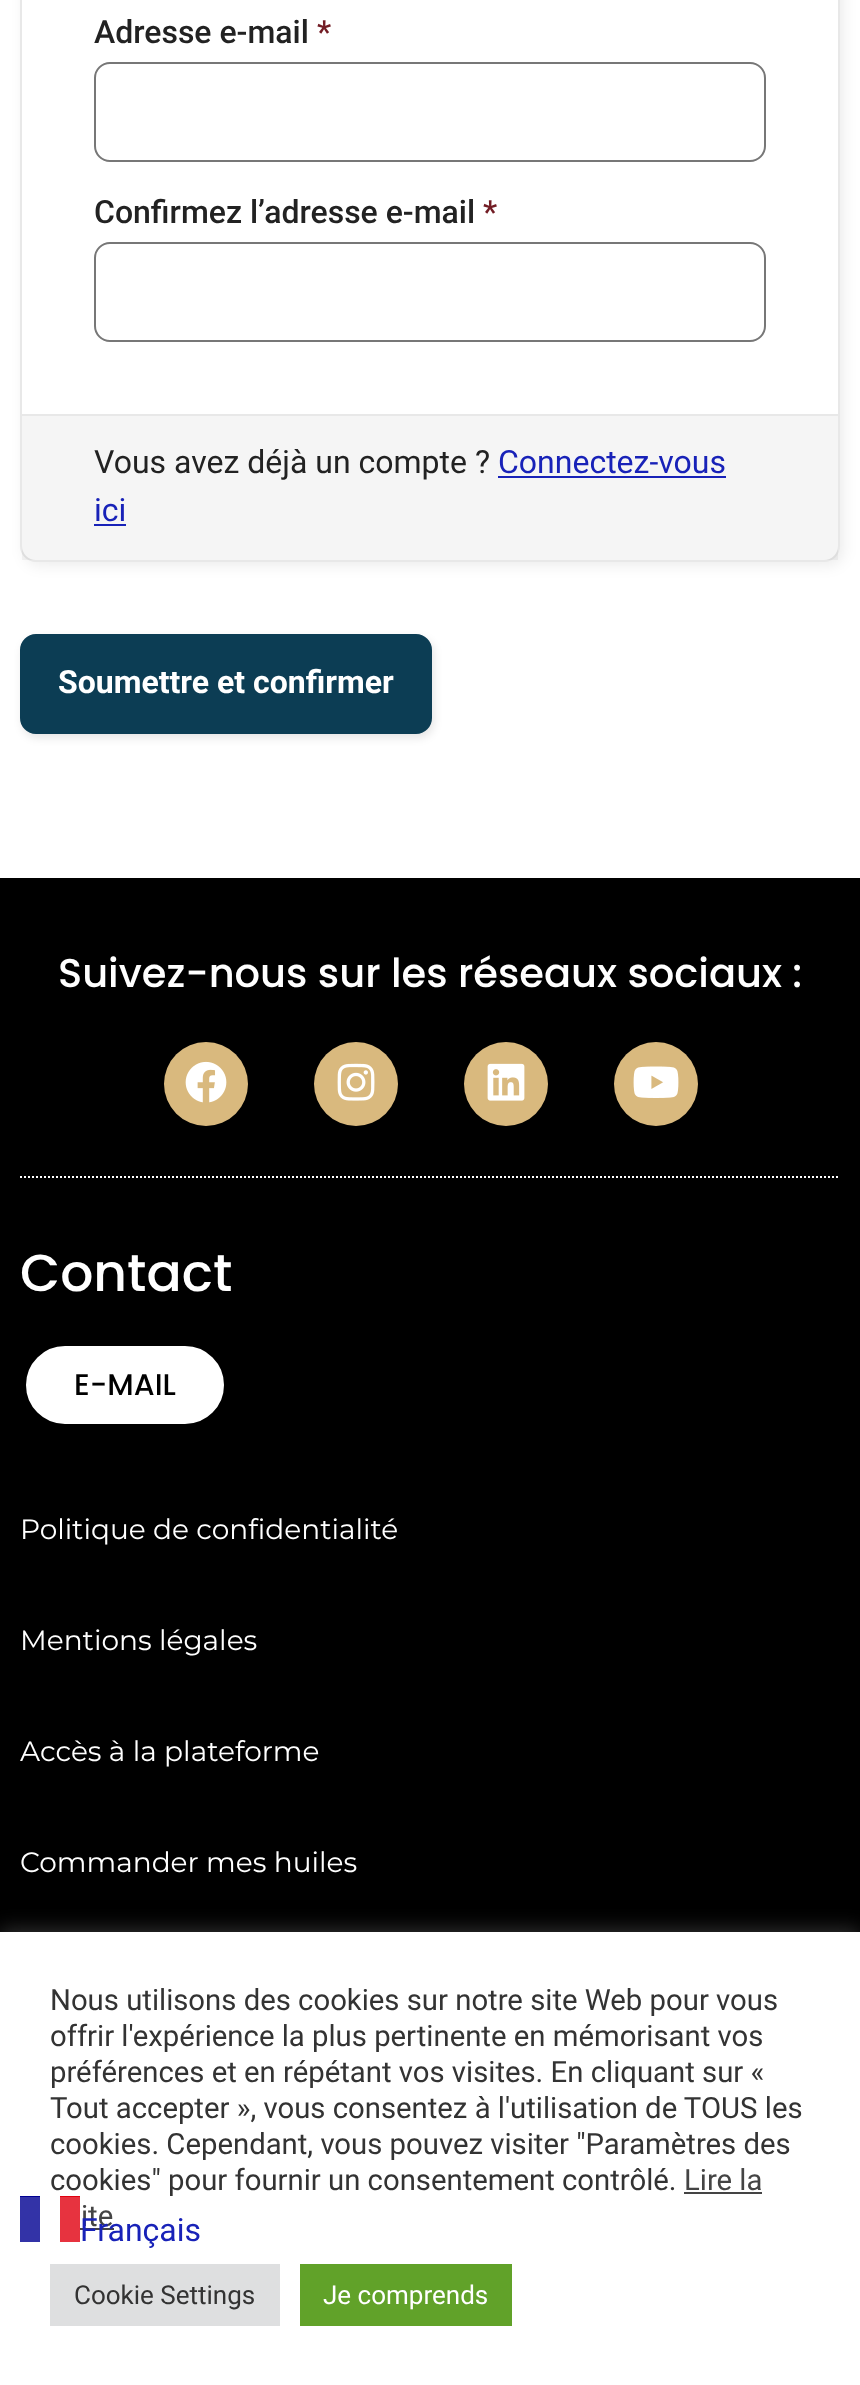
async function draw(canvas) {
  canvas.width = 860
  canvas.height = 2385
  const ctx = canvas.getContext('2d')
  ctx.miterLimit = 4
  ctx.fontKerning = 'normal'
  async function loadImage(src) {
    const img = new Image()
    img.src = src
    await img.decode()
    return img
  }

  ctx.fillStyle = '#fff'
  ctx.fillRect(0, 0, 860, 2385)
  ctx.fillStyle = '#00000012'
  ctx.filter = 'blur(7px)'
  ctx.beginPath()
  ctx.roundRect(24, -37, 820, 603, 16)
  ctx.fill()
  ctx.filter = 'none'
  ctx.fillStyle = '#fff'
  ctx.beginPath()
  ctx.roundRect(21, -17, 818, 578, 15)
  ctx.fill()
  ctx.strokeStyle = '#e8e8e8'
  ctx.lineWidth = 2
  ctx.stroke()
  ctx.font = '500 32px Roboto'
  ctx.fillStyle = '#222'
  ctx.fillText('Adresse e-mail', 94, 43)
  ctx.fillStyle = '#721c24'
  ctx.fillText('*', 317, 43)
  ctx.beginPath()
  ctx.roundRect(95, 63, 670, 98, 15)
  ctx.strokeStyle = '#777'
  ctx.stroke()
  ctx.fillStyle = '#222'
  ctx.fillText('Confirmez l’adresse e-mail', 94, 223)
  ctx.fillStyle = '#721c24'
  ctx.fillText('*', 483, 223)
  ctx.beginPath()
  ctx.roundRect(95, 243, 670, 98, 15)
  ctx.stroke()
  ctx.fillStyle = '#0000000a'
  ctx.fillRect(22, 416, 816, 144)
  ctx.fillStyle = '#e8e8e8'
  ctx.fillRect(22, 414, 816, 2)
  ctx.font = '32px Roboto'
  ctx.fillStyle = '#222'
  ctx.fillText('Vous avez déjà un compte ?', 94, 473)
  ctx.fillStyle = '#1822b8'
  ctx.fillText('Connectez-vous', 498, 473)
  ctx.fillRect(498, 476, 228, 2)
  ctx.fillText('ici', 94, 521)
  ctx.fillRect(94, 524, 32, 2)
  ctx.fillStyle = '#0000001a'
  ctx.filter = 'blur(4px)'
  ctx.beginPath()
  ctx.roundRect(22, 638, 412, 100, 16)
  ctx.fill()
  ctx.filter = 'none'
  ctx.fillStyle = '#0c3d54'
  ctx.beginPath()
  ctx.roundRect(21, 635, 410, 98, 15)
  ctx.fill()
  ctx.strokeStyle = '#0c3d54'
  ctx.stroke()
  ctx.font = 'bold 32px Roboto'
  ctx.fillStyle = '#fff'
  ctx.fillText('Soumettre et confirmer', 58, 693)
  ctx.fillStyle = '#000'
  ctx.fillRect(0, 878, 860, 1054)
  ctx.font = '500 40px Poppins'
  ctx.fillStyle = '#fff'
  ctx.fillText('Suivez-nous sur les réseaux sociaux :', 58, 987)
  ctx.fillStyle = '#d9b97e'
  ctx.beginPath()
  ctx.arc(206, 1084, 42, 0, 2 * Math.PI)
  ctx.fill()
  ctx.drawImage(await loadImage('image0.png'), 185, 1061, 42, 42)
  ctx.beginPath()
  ctx.arc(356, 1084, 42, 0, 2 * Math.PI)
  ctx.fill()
  ctx.drawImage(await loadImage('image1.png'), 337, 1063, 38, 38)
  ctx.beginPath()
  ctx.arc(506, 1084, 42, 0, 2 * Math.PI)
  ctx.fill()
  ctx.drawImage(await loadImage('image2.png'), 487, 1063, 38, 38)
  ctx.beginPath()
  ctx.arc(656, 1084, 42, 0, 2 * Math.PI)
  ctx.fill()
  ctx.drawImage(await loadImage('image3.png'), 633, 1066, 46, 32)
  ctx.beginPath()
  ctx.moveTo(20, 1177)
  ctx.lineTo(840, 1177)
  ctx.strokeStyle = '#fff'
  ctx.setLineDash([2, 2])
  ctx.stroke()
  ctx.font = '500 52px Poppins'
  ctx.fillStyle = '#fff'
  ctx.fillText('Contact', 20, 1291)
  ctx.beginPath()
  ctx.roundRect(23, 1343, 204, 84, 42)
  ctx.fill()
  ctx.strokeStyle = '#000'
  ctx.lineWidth = 6
  ctx.setLineDash([])
  ctx.stroke()
  ctx.font = '500 30px Poppins'
  ctx.fillStyle = '#000'
  ctx.fillText('E-MAIL', 74, 1395)
  ctx.font = '28px Montserrat'
  ctx.fillStyle = '#fff'
  ctx.fillText('Politique de confidentialité', 20, 1539)
  ctx.fillText('Mentions légales', 20, 1650)
  ctx.fillText('Accès à la plateforme', 20, 1761)
  ctx.fillText('Commander mes huiles', 20, 1872)
  ctx.fillStyle = '#acabab4d'
  ctx.filter = 'blur(10px)'
  ctx.beginPath()
  ctx.rect(0, 1930, 860, 454)
  ctx.fill()
  ctx.filter = 'none'
  ctx.fillStyle = '#fff'
  ctx.fillRect(0, 1932, 860, 453)
  ctx.font = '29.3px Roboto'
  ctx.fillStyle = '#333'
  ctx.fillText('Nous utilisons des cookies sur notre site Web pour vous', 50, 2010)
  ctx.fillText('offrir l\'expérience la plus pertinente en mémorisant vos', 50, 2046)
  ctx.fillText('préférences et en répétant vos visites. En cliquant sur «', 50, 2082)
  ctx.fillText('Tout accepter », vous consentez à l\'utilisation de TOUS les', 50, 2118)
  ctx.fillText('cookies. Cependant, vous pouvez visiter "Paramètres des', 50, 2154)
  ctx.fillText('cookies" pour fournir un consentement contrôlé.', 50, 2190)
  ctx.fillStyle = '#444'
  ctx.fillText('Lire la', 684, 2190)
  ctx.fillRect(684, 2192, 78, 2)
  ctx.fillText('ite', 81, 2226)
  ctx.fillRect(80, 2228, 34, 2)
  ctx.fillStyle = '#dedfe0'
  ctx.fillRect(50, 2264, 230, 62)
  ctx.font = '26px Roboto'
  ctx.fillStyle = '#333'
  ctx.fillText('Cookie Settings', 74, 2304)
  ctx.fillStyle = '#61a229'
  ctx.fillRect(300, 2264, 212, 62)
  ctx.fillStyle = '#fff'
  ctx.fillText('Je comprends', 323, 2304)
  ctx.font = '32px Roboto'
  ctx.fillStyle = '#1822b8'
  ctx.fillText('Français', 80, 2241)
  ctx.fillStyle = '#000091'
  ctx.fillRect(20, 2196, 20, 46)
  ctx.fillStyle = '#e1000f'
  ctx.fillRect(60, 2196, 20, 46)
  ctx.fillStyle = '#ffffff33'
  ctx.fillRect(20, 2197, 60, 45)
}

draw(document.querySelector('canvas'))
